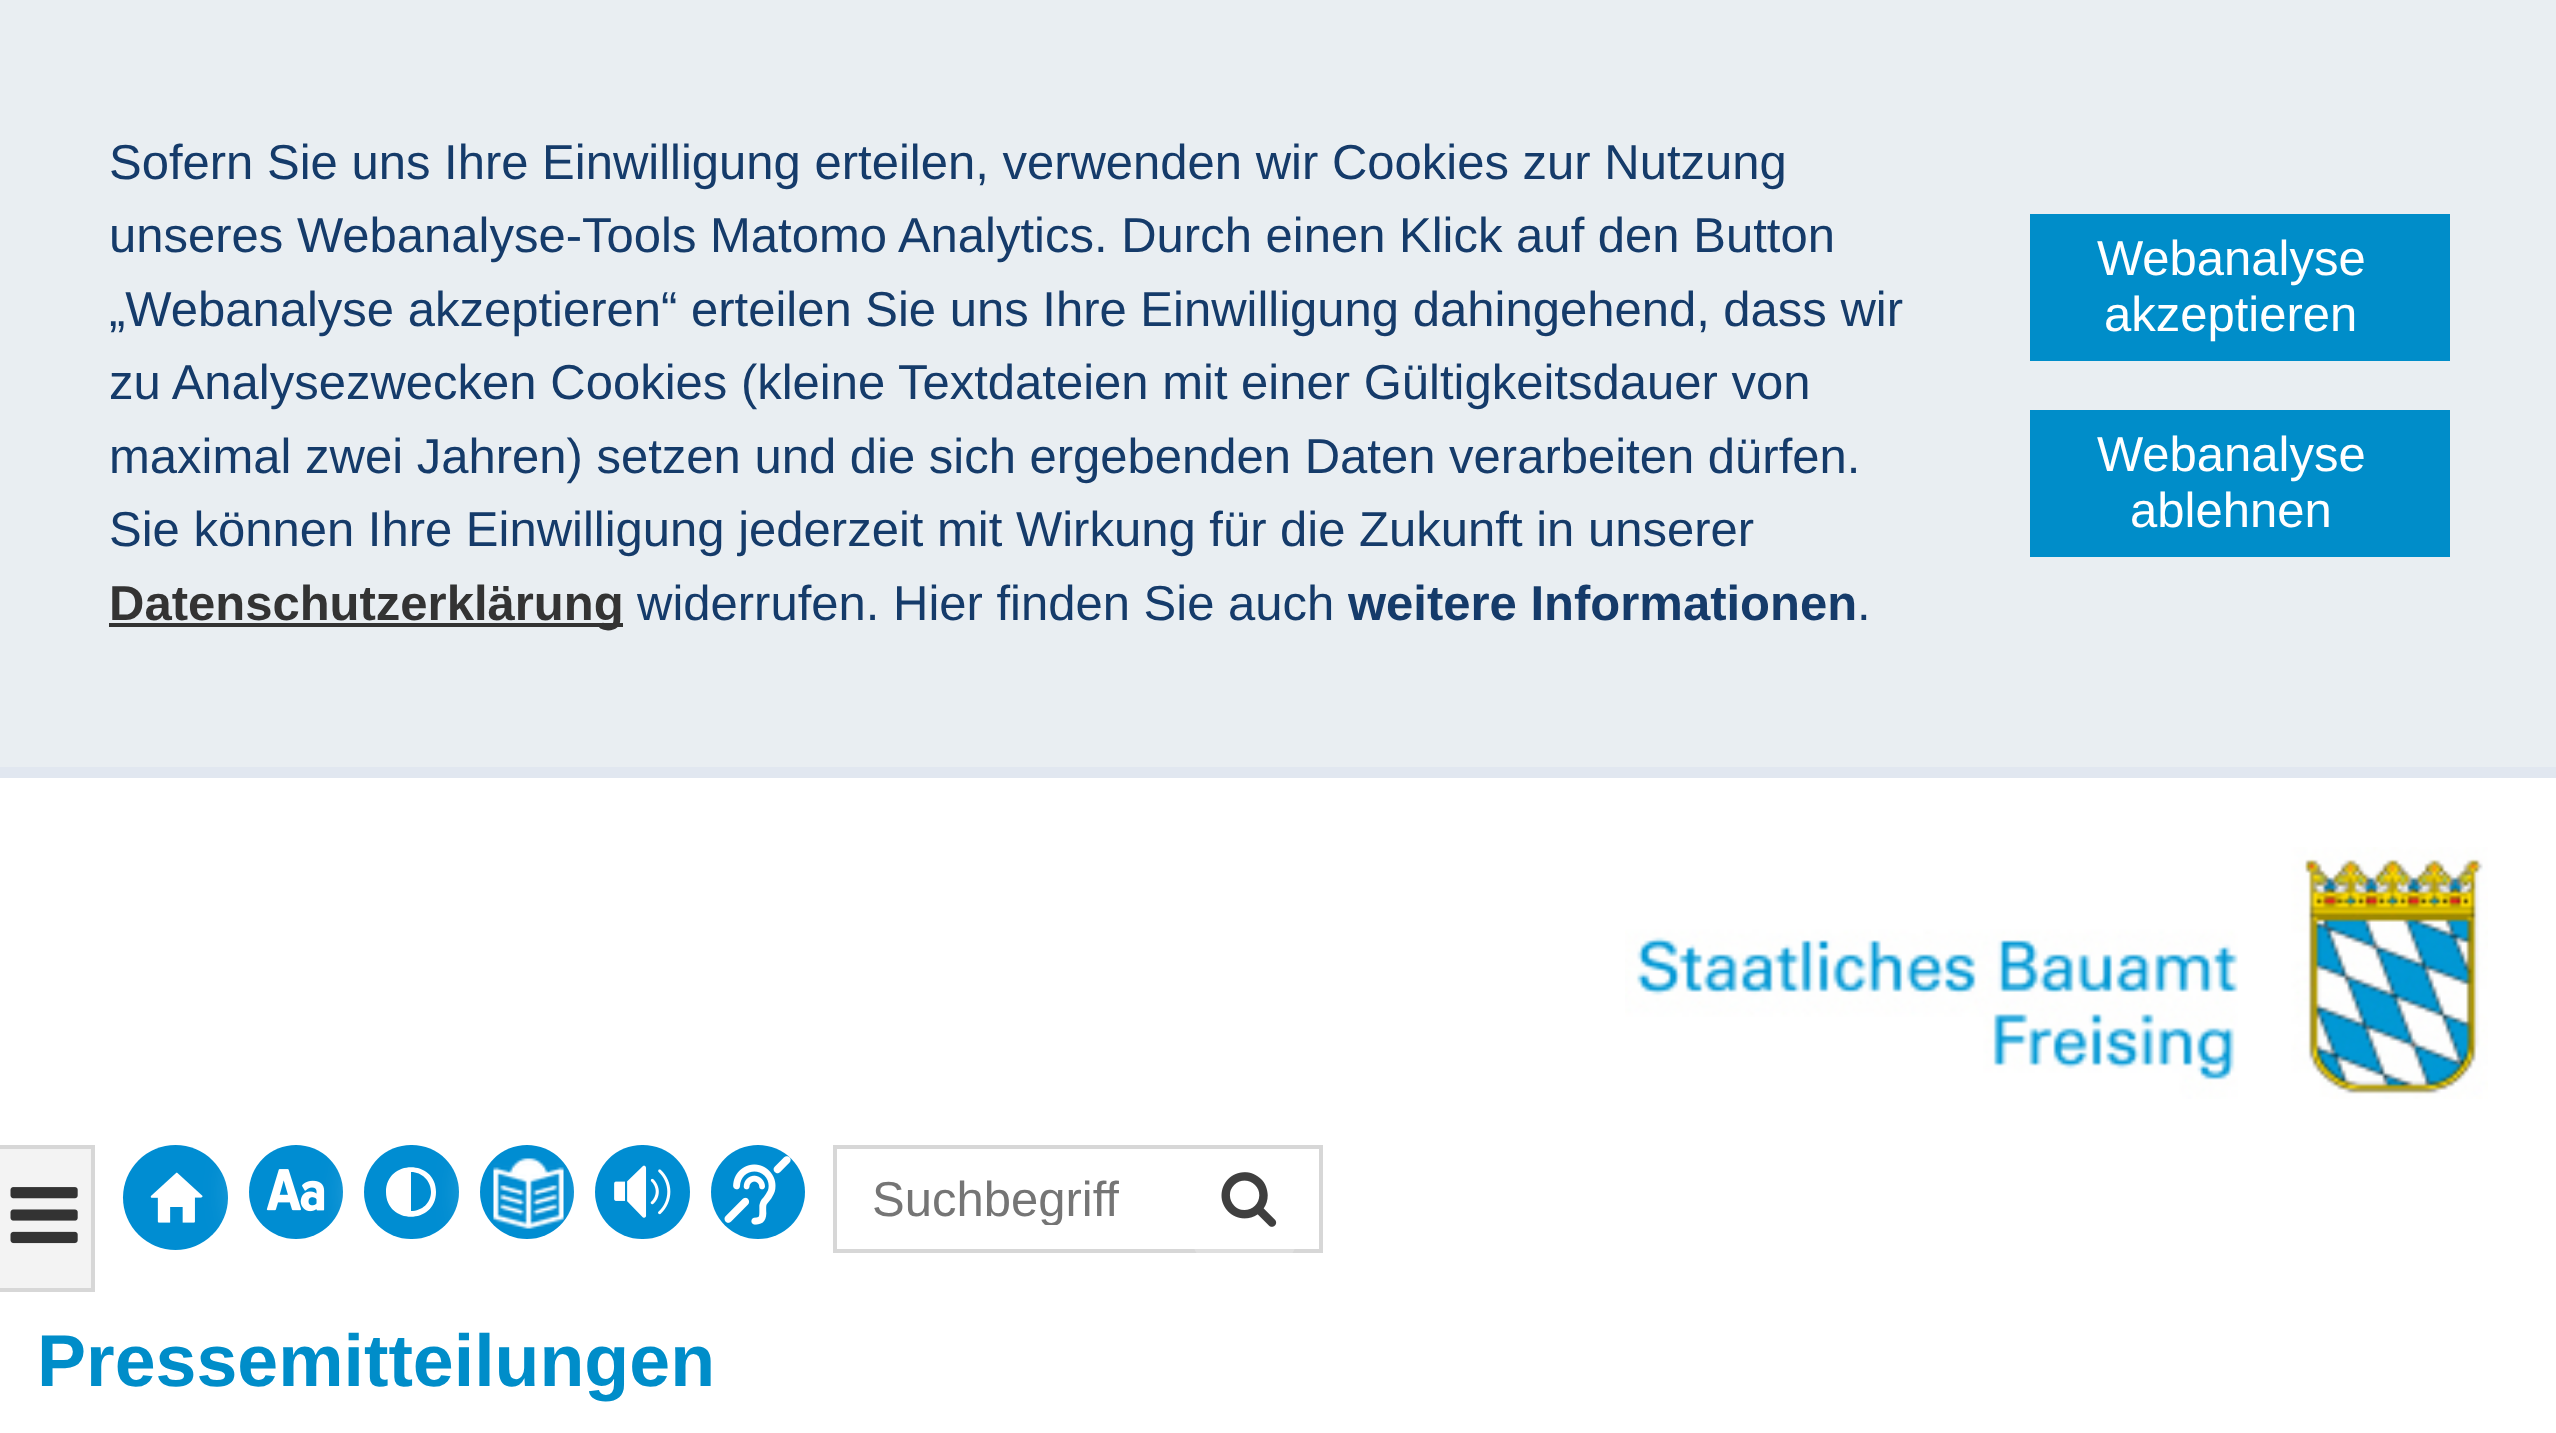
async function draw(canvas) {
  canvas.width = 2556
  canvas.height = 1433
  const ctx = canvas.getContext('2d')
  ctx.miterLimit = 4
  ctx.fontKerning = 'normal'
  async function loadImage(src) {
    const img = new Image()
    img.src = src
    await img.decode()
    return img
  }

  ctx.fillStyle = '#fff'
  ctx.fillRect(0, 0, 2556, 1433)
  ctx.fillStyle = '#e9eef2'
  ctx.fillRect(0, 0, 2556, 767)
  ctx.fillStyle = '#e1e7f0'
  ctx.fillRect(0, 767, 2556, 11)
  ctx.font = '49px Liberation Sans'
  ctx.fillStyle = '#153b6a'
  ctx.fillText('Sofern Sie uns Ihre Einwilligung erteilen, verwenden wir Cookies zur Nutzung', 109, 179)
  ctx.fillText('unseres Webanalyse-Tools Matomo Analytics. Durch einen Klick auf den Button', 109, 252)
  ctx.fillText('„Webanalyse akzeptieren“ erteilen Sie uns Ihre Einwilligung dahingehend, dass wir', 109, 326)
  ctx.fillText('zu Analysezwecken Cookies (kleine Textdateien mit einer Gültigkeitsdauer von', 109, 399)
  ctx.fillText('maximal zwei Jahren) setzen und die sich ergebenden Daten verarbeiten dürfen.', 109, 473)
  ctx.fillText('Sie können Ihre Einwilligung jederzeit mit Wirkung für die Zukunft in unserer', 109, 546)
  ctx.fillStyle = '#333'
  ctx.fillRect(109, 623, 514, 4)
  ctx.font = 'bold 49px Liberation Sans'
  ctx.fillText('Datenschutzerklärung', 109, 620)
  ctx.font = '49px Liberation Sans'
  ctx.fillStyle = '#153b6a'
  ctx.fillText('widerrufen. Hier finden Sie auch', 637, 620)
  ctx.font = 'bold 49px Liberation Sans'
  ctx.fillText('weitere Informationen', 1348, 620)
  ctx.font = '49px Liberation Sans'
  ctx.fillText('.', 1857, 620)
  ctx.fillStyle = '#008dc9'
  ctx.fillRect(2030, 214, 420, 147)
  ctx.fillStyle = '#fff'
  ctx.fillText('Webanalyse', 2097, 275)
  ctx.fillText('akzeptieren', 2104, 331)
  ctx.fillStyle = '#008dc9'
  ctx.fillRect(2030, 410, 420, 147)
  ctx.fillStyle = '#fff'
  ctx.fillText('Webanalyse', 2097, 471)
  ctx.fillText('ablehnen', 2130, 527)
  ctx.drawImage(await loadImage('image0.png'), 1625, 847, 863, 252)
  ctx.fillStyle = '#f3f3f3'
  ctx.fillRect(0, 1149, 91, 139)
  ctx.fillStyle = '#d7d7d7'
  ctx.fillRect(0, 1145, 95, 4)
  ctx.fillRect(91, 1145, 4, 147)
  ctx.fillRect(0, 1288, 95, 4)
  ctx.drawImage(await loadImage('image1.png'), 10, 1187, 68, 57)
  ctx.fillStyle = '#008dd2'
  ctx.beginPath()
  ctx.arc(175.5, 1197.5, 52.5, 0, 2 * Math.PI)
  ctx.fill()
  ctx.drawImage(await loadImage('image2.png'), 150, 1172, 53, 51)
  ctx.fillStyle = '#ffffffb3'
  ctx.filter = 'blur(21px)'
  ctx.beginPath()
  ctx.roundRect(249, 1145, 94, 94, 47)
  ctx.fill()
  ctx.filter = 'none'
  ctx.fillStyle = '#008dd2'
  ctx.beginPath()
  ctx.arc(296, 1192, 47, 0, 2 * Math.PI)
  ctx.fill()
  ctx.drawImage(await loadImage('image3.png'), 266, 1169, 59, 43)
  ctx.fillStyle = '#ffffffb3'
  ctx.filter = 'blur(21px)'
  ctx.beginPath()
  ctx.roundRect(364, 1145, 95, 94, 47)
  ctx.fill()
  ctx.filter = 'none'
  ctx.fillStyle = '#008dd2'
  ctx.beginPath()
  ctx.roundRect(364, 1145, 95, 94, 47)
  ctx.fill()
  ctx.fillStyle = '#fff'
  ctx.beginPath()
  ctx.moveTo(436, 1192)
  ctx.bezierCurveTo(436, 1159, 386, 1159, 386, 1192)
  ctx.bezierCurveTo(386, 1225, 436, 1225, 436, 1192)
  ctx.moveTo(431, 1192)
  ctx.bezierCurveTo(431, 1203, 422, 1211, 411, 1211)
  ctx.lineTo(411, 1172)
  ctx.bezierCurveTo(422, 1172, 431, 1181, 431, 1192)
  ctx.fill()
  ctx.fillStyle = '#ffffffb3'
  ctx.filter = 'blur(21px)'
  ctx.beginPath()
  ctx.roundRect(480, 1145, 94, 94, 47)
  ctx.fill()
  ctx.filter = 'none'
  ctx.fillStyle = '#008dd2'
  ctx.beginPath()
  ctx.arc(527, 1192, 47, 0, 2 * Math.PI)
  ctx.fill()
  ctx.drawImage(await loadImage('image4.png'), 493, 1158, 71, 71)
  ctx.fillStyle = '#ffffffb3'
  ctx.filter = 'blur(21px)'
  ctx.beginPath()
  ctx.roundRect(595, 1145, 95, 94, 47)
  ctx.fill()
  ctx.filter = 'none'
  ctx.fillStyle = '#008dd2'
  ctx.beginPath()
  ctx.roundRect(595, 1145, 95, 94, 47)
  ctx.fill()
  ctx.drawImage(await loadImage('image5.png'), 614, 1165, 57, 53)
  ctx.beginPath()
  ctx.arc(758, 1192, 47, 0, 2 * Math.PI)
  ctx.fill()
  ctx.drawImage(await loadImage('image6.png'), 724, 1156, 67, 69)
  ctx.strokeStyle = '#d7d7d7'
  ctx.lineWidth = 4
  ctx.strokeRect(835, 1147, 486, 104)
  ctx.save()
  ctx.beginPath()
  ctx.rect(872, 1169, 413, 56)
  ctx.clip()
  ctx.fillStyle = '#757575'
  ctx.fillText('Suchbegriff', 872, 1216)
  ctx.restore()
  ctx.fillStyle = '#ffffff33'
  ctx.beginPath()
  ctx.roundRect(1194, 1155, 101, 102, 11)
  ctx.fill()
  ctx.drawImage(await loadImage('image7.png'), 1221, 1172, 56, 55)
  ctx.font = 'bold 73.5px Liberation Sans'
  ctx.fillStyle = '#008dc9'
  ctx.fillText('Pressemitteilungen', 37, 1386)
}

draw(document.querySelector('canvas'))
